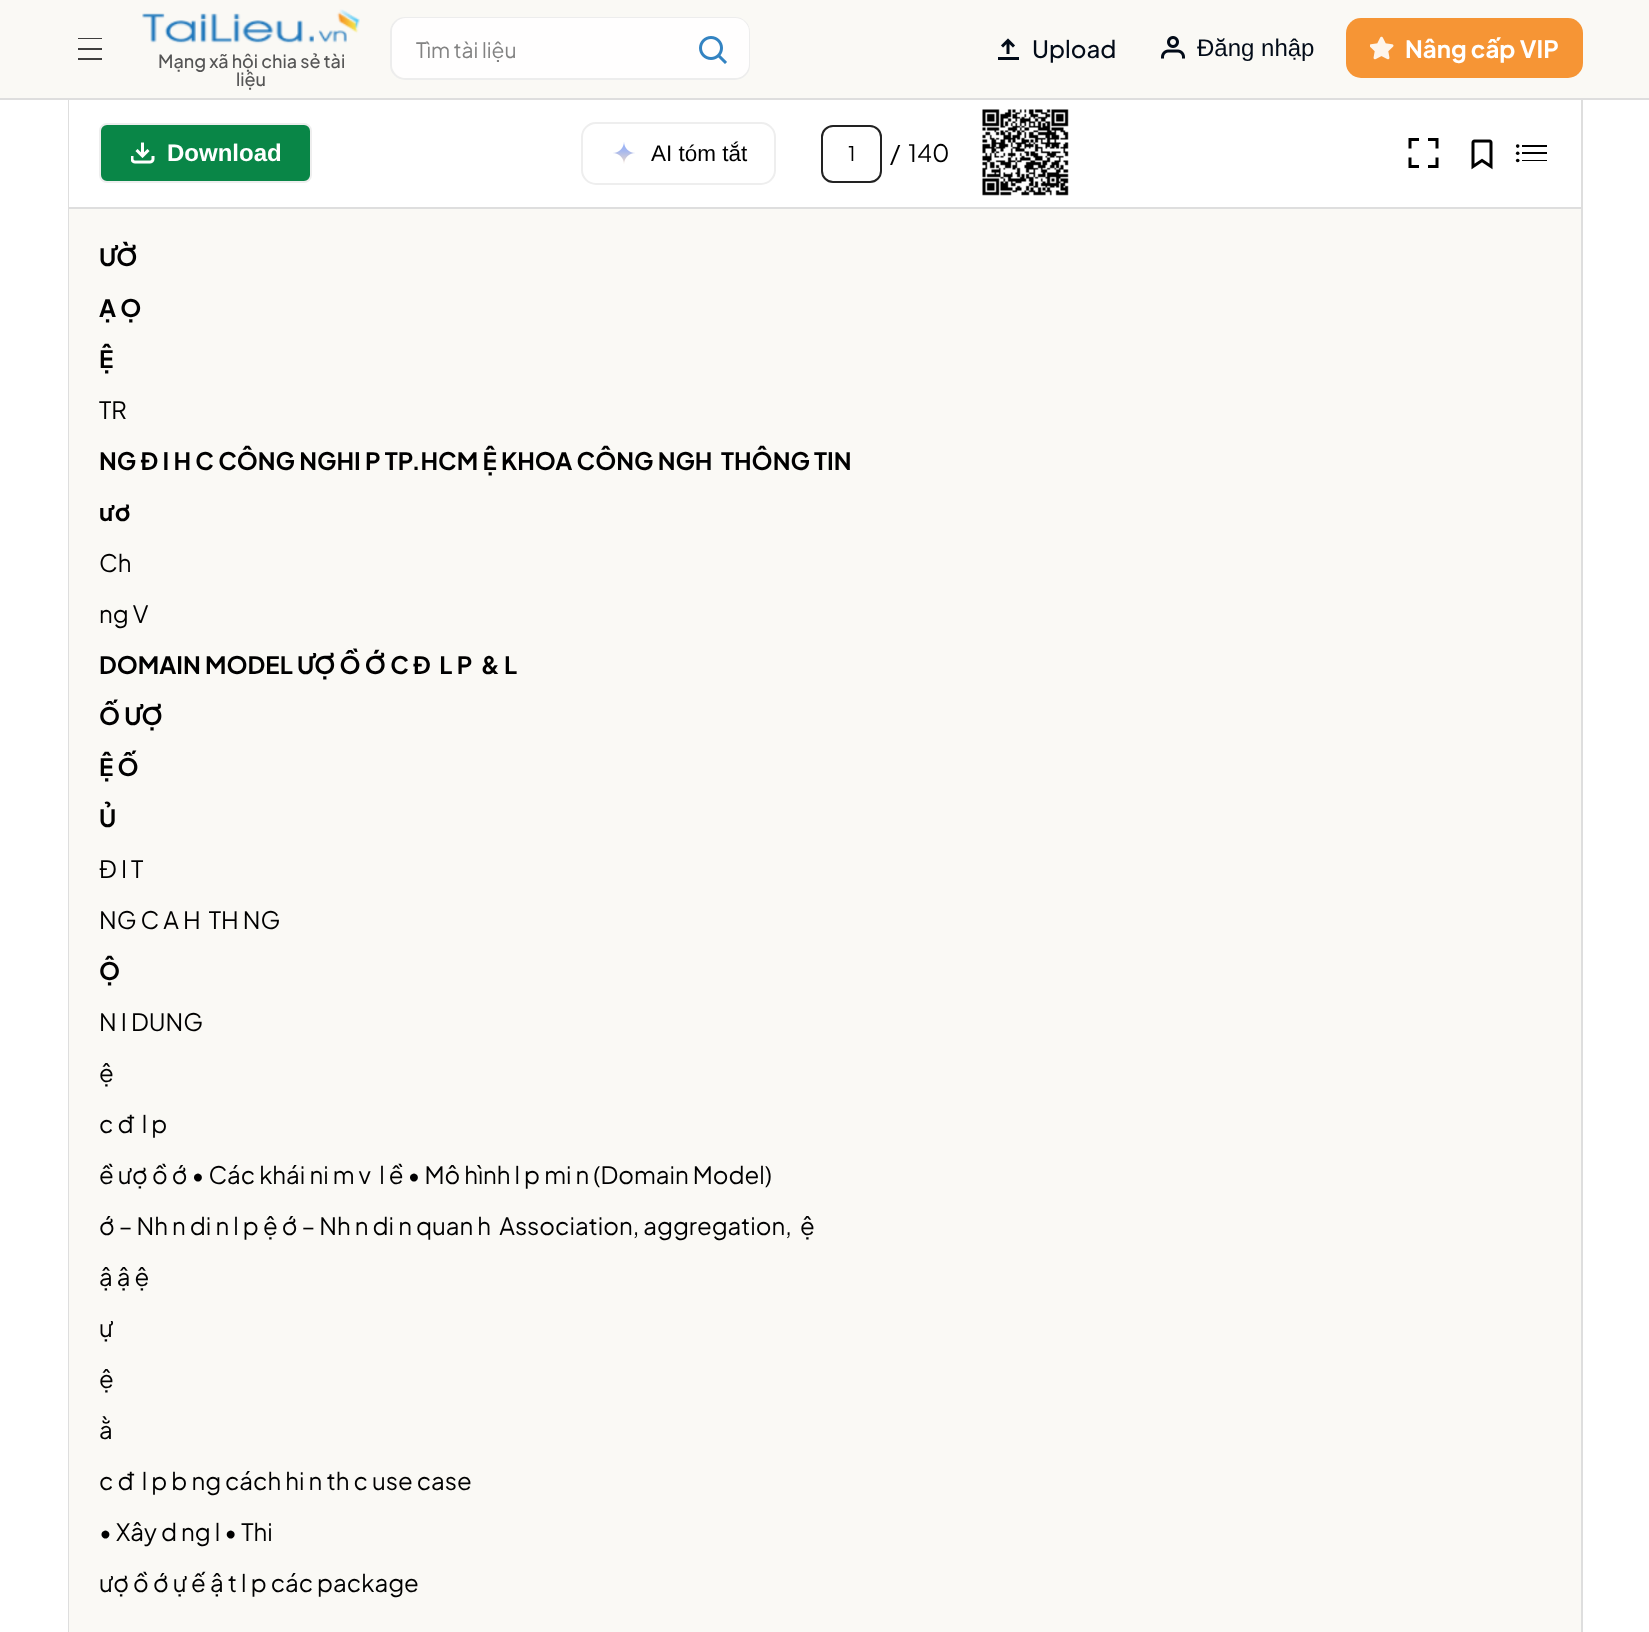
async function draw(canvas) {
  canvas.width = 1649
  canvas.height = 1632
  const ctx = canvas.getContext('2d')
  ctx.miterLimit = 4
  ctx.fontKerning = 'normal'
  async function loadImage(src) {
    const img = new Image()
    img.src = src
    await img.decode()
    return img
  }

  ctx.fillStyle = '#fff'
  ctx.fillRect(0, 0, 1649, 1632)
  ctx.fillStyle = '#faf9f5'
  ctx.fillRect(0, 0, 1649, 98)
  ctx.fillStyle = '#dedede'
  ctx.fillRect(1581, 99, 2, 1533)
  ctx.fillRect(68, 99, 1, 1533)
  ctx.fillRect(0, 98, 1649, 2)
  ctx.fillStyle = '#3f3e3d'
  ctx.fillRect(78, 38, 24, 1)
  ctx.fillRect(78, 48, 24, 2)
  ctx.fillRect(78, 58, 24, 2)
  ctx.drawImage(await loadImage('image0.png'), 142, 9, 218, 35)
  ctx.font = '500 18px Plus Jakarta Sans'
  ctx.fillStyle = '#555'
  ctx.fillText('Mạng xã hội chia sẻ tài', 158, 68)
  ctx.fillText('liệu', 236, 86)
  ctx.beginPath()
  ctx.roundRect(391, 18, 358, 61, 14)
  ctx.strokeStyle = '#ededed'
  ctx.lineWidth = 2
  ctx.stroke()
  ctx.fillStyle = '#fffefe'
  ctx.beginPath()
  ctx.roundRect(392, 18, 357, 60, 14)
  ctx.fill()
  ctx.font = '21px Plus Jakarta Sans'
  ctx.fillStyle = '#828282'
  ctx.fillText('Tìm tài liệu', 416, 58)
  ctx.drawImage(await loadImage('image1.png'), 699, 36, 28, 28)
  ctx.drawImage(await loadImage('image2.png'), 998, 38, 21, 22)
  ctx.font = '500 24px Plus Jakarta Sans'
  ctx.fillStyle = '#020b18'
  ctx.fillText('Upload', 1032, 58)
  ctx.drawImage(await loadImage('image3.png'), 1161, 36, 24, 23)
  ctx.font = '24px Liberation Sans'
  ctx.fillText('Đăng nhập', 1197, 56)
  ctx.fillStyle = '#f69535'
  ctx.beginPath()
  ctx.roundRect(1346, 18, 237, 60, 15)
  ctx.fill()
  ctx.drawImage(await loadImage('image4.png'), 1370, 36, 24, 24)
  ctx.font = 'bold 24px Plus Jakarta Sans'
  ctx.fillStyle = '#fff'
  ctx.fillText('Nâng cấp VIP', 1405, 58)
  ctx.fillStyle = '#dedede'
  ctx.fillRect(69, 207, 1512, 2)
  ctx.fillStyle = '#098647'
  ctx.beginPath()
  ctx.roundRect(100, 124, 211, 58, 7)
  ctx.fill()
  ctx.strokeStyle = '#eee'
  ctx.stroke()
  ctx.drawImage(await loadImage('image5.png'), 131, 142, 24, 22)
  ctx.font = 'bold 24px Liberation Sans'
  ctx.fillStyle = '#fff'
  ctx.fillText('Download', 167, 161)
  ctx.beginPath()
  ctx.roundRect(582, 123, 193, 61, 14)
  ctx.stroke()
  ctx.drawImage(await loadImage('image6.png'), 613, 142, 22, 22)
  ctx.font = '22.5px Liberation Sans'
  ctx.fillStyle = '#000'
  ctx.fillText('AI tóm tắt', 651, 161)
  ctx.beginPath()
  ctx.roundRect(822, 126, 59, 56, 11)
  ctx.strokeStyle = '#222'
  ctx.stroke()
  ctx.font = '20px Plus Jakarta Sans'
  ctx.fillText('1', 848, 161)
  ctx.font = '24px Plus Jakarta Sans'
  ctx.fillText('/', 890, 162)
  ctx.fillText('140', 908, 162)
  ctx.drawImage(await loadImage('image7.png'), 982, 109, 87, 87)
  ctx.drawImage(await loadImage('image8.png'), 1408, 138, 31, 30)
  ctx.drawImage(await loadImage('image9.png'), 1471, 139, 22, 31)
  ctx.beginPath()
  ctx.arc(1517.7, 146.1, 1.8, 0, 2 * Math.PI)
  ctx.fill()
  ctx.fillRect(1522, 145, 25, 2)
  ctx.beginPath()
  ctx.arc(1517.7, 153.3, 1.8, 0, 2 * Math.PI)
  ctx.fill()
  ctx.fillRect(1522, 152, 25, 2)
  ctx.beginPath()
  ctx.arc(1517.7, 160.5, 1.8, 0, 2 * Math.PI)
  ctx.fill()
  ctx.fillRect(1522, 160, 25, 1)
  ctx.fillStyle = '#faf9f5'
  ctx.fillRect(69, 209, 1512, 1423)
  ctx.font = 'bold 24px Plus Jakarta Sans'
  ctx.fillStyle = '#000'
  ctx.fillText('ƯỜ', 99, 266)
  ctx.fillText('Ạ Ọ', 99, 317)
  ctx.fillText('Ệ', 99, 368)
  ctx.font = '24px Plus Jakarta Sans'
  ctx.fillText('TR', 99, 419)
  ctx.font = 'bold 24px Plus Jakarta Sans'
  ctx.fillText('NG Đ I H C CÔNG NGHI P TP.HCM Ệ KHOA CÔNG NGH  THÔNG TIN', 99, 470)
  ctx.fillText('ươ', 99, 521)
  ctx.font = '24px Plus Jakarta Sans'
  ctx.fillText('Ch', 99, 572)
  ctx.fillText('ng V', 99, 623)
  ctx.font = 'bold 24px Plus Jakarta Sans'
  ctx.fillText('DOMAIN MODEL ƯỢ Ồ Ớ C Đ  L P  & L', 99, 674)
  ctx.fillText('Ố ƯỢ', 99, 725)
  ctx.fillText('Ệ Ố', 99, 776)
  ctx.fillText('Ủ', 99, 827)
  ctx.font = '24px Plus Jakarta Sans'
  ctx.fillText('Đ I T', 99, 878)
  ctx.fillText('NG C A H  TH NG', 99, 929)
  ctx.font = 'bold 24px Plus Jakarta Sans'
  ctx.fillText('Ộ', 99, 980)
  ctx.font = '24px Plus Jakarta Sans'
  ctx.fillText('N I DUNG', 99, 1031)
  ctx.fillText('ệ', 99, 1082)
  ctx.fillText('c đ  l p', 99, 1133)
  ctx.fillText('ề ượ ồ ớ • Các khái ni m v  l ề • Mô hình l p mi n (Domain Model)', 99, 1184)
  ctx.fillText('ớ – Nh n di n l p ệ ớ – Nh n di n quan h  Association, aggregation,  ệ', 99, 1235)
  ctx.fillText('ậ ậ ệ', 99, 1286)
  ctx.fillText('ự', 99, 1337)
  ctx.fillText('ệ', 99, 1388)
  ctx.fillText('ằ', 99, 1439)
  ctx.fillText('c đ  l p b ng cách hi n th c use case', 99, 1490)
  ctx.fillText('• Xây d ng l • Thi', 99, 1541)
  ctx.fillText('ượ ồ ớ ự ế ậ t l p các package', 99, 1592)
}

draw(document.querySelector('canvas'))
